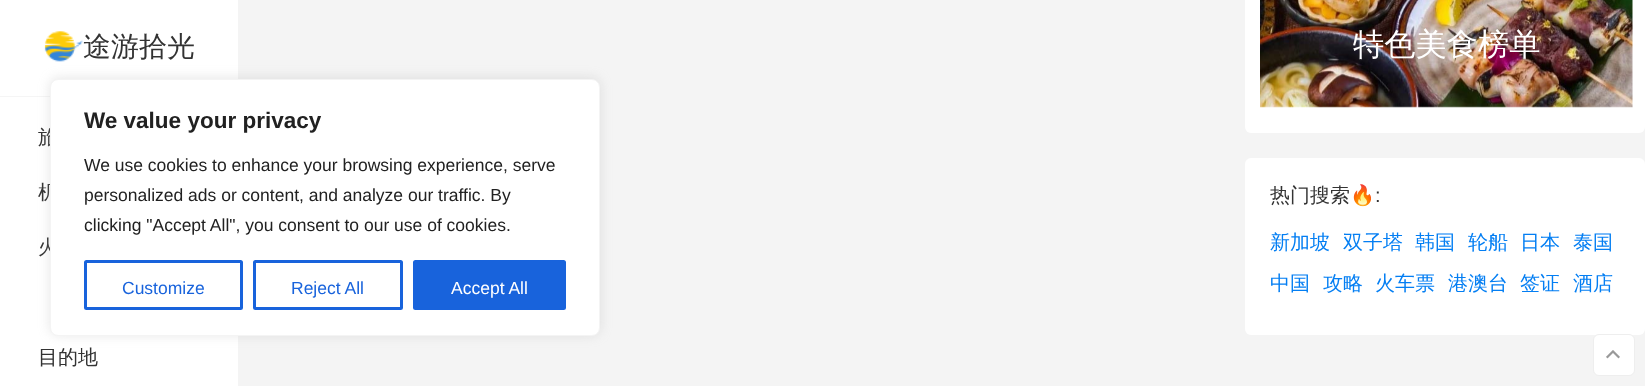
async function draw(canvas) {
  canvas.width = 1645
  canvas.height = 386
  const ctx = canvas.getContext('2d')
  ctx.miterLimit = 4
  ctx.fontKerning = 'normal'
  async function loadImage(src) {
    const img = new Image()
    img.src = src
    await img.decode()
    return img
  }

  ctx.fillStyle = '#f4f4f4'
  ctx.fillRect(0, 0, 1645, 386)
  ctx.fillStyle = '#fff'
  ctx.fillRect(0, 0, 238, 386)
  ctx.fillStyle = '#f5f5f5'
  ctx.fillRect(0, 96, 50, 1)
  ctx.drawImage(await loadImage('image0.png'), 44, 31, 39, 31)
  ctx.font = '500 28px WenQuanYi Zen Hei'
  ctx.fillStyle = '#333'
  ctx.fillText('途游拾光', 83, 56)
  ctx.font = '500 20px WenQuanYi Zen Hei'
  ctx.fillText('旅', 38, 144)
  ctx.fillText('机', 38, 199)
  ctx.fillText('火', 38, 254)
  ctx.fillText('目的地', 38, 364)
  ctx.fillStyle = '#fff'
  ctx.beginPath()
  ctx.roundRect(1245, -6, 400, 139, 6)
  ctx.fill()
  ctx.drawImage(await loadImage('image1.png'), 1260, 0, 373, 108)
  ctx.font = '500 31.25px WenQuanYi Zen Hei'
  ctx.fillText('特色美食榜单', 1353, 55)
  ctx.beginPath()
  ctx.roundRect(1245, 158, 400, 177, 6)
  ctx.fill()
  ctx.font = '500 20px WenQuanYi Zen Hei'
  ctx.fillStyle = '#333'
  ctx.fillText('热门搜索', 1270, 202)
  ctx.font = '20px Noto Color Emoji'
  ctx.fillText('🔥', 1350, 202)
  ctx.font = '20px Liberation Sans'
  ctx.fillText(':', 1375, 202)
  ctx.font = '500 20px WenQuanYi Zen Hei'
  ctx.fillStyle = '#037ef3'
  ctx.fillText('新加坡', 1270, 249)
  ctx.fillText('双子塔', 1343, 249)
  ctx.fillText('韩国', 1415, 249)
  ctx.fillText('轮船', 1468, 249)
  ctx.fillText('日本', 1520, 249)
  ctx.fillText('泰国', 1573, 249)
  ctx.fillText('中国', 1270, 290)
  ctx.fillText('攻略', 1323, 290)
  ctx.fillText('火车票', 1375, 290)
  ctx.fillText('港澳台', 1448, 290)
  ctx.fillText('签证', 1520, 290)
  ctx.fillText('酒店', 1573, 290)
  ctx.fillStyle = '#acabab4d'
  ctx.filter = 'blur(6px)'
  ctx.beginPath()
  ctx.roundRect(50, 78, 550, 257, 8)
  ctx.fill()
  ctx.filter = 'none'
  ctx.fillStyle = '#fff'
  ctx.beginPath()
  ctx.roundRect(50.5, 79.5, 549, 256, 7.5)
  ctx.fill()
  ctx.strokeStyle = '#f4f4f4'
  ctx.stroke()
  ctx.font = 'bold 22.5px Liberation Sans'
  ctx.fillStyle = '#212121'
  ctx.fillText('We value your privacy', 84, 128)
  ctx.font = '17.5px Liberation Sans'
  ctx.fillText('We use cookies to enhance your browsing experience, serve', 84, 171)
  ctx.fillText('personalized ads or content, and analyze our traffic. By', 84, 201)
  ctx.fillText('clicking "Accept All", you consent to our use of cookies.', 84, 231)
  ctx.beginPath()
  ctx.roundRect(85.5, 261.5, 156, 47, 1)
  ctx.strokeStyle = '#1863dc'
  ctx.lineWidth = 3
  ctx.stroke()
  ctx.fillStyle = '#1863dc'
  ctx.fillText('Customize', 122, 294)
  ctx.beginPath()
  ctx.roundRect(254.5, 261.5, 147, 47, 1)
  ctx.stroke()
  ctx.fillText('Reject All', 291, 294)
  ctx.beginPath()
  ctx.roundRect(414.5, 261.5, 150, 47, 1)
  ctx.fill()
  ctx.stroke()
  ctx.fillStyle = '#fff'
  ctx.fillText('Accept All', 451, 294)
  ctx.beginPath()
  ctx.roundRect(1593.5, 334.5, 41, 41, 5.5)
  ctx.fill()
  ctx.strokeStyle = '#eee'
  ctx.lineWidth = 1
  ctx.stroke()
  ctx.drawImage(await loadImage('image2.png'), 1606, 350, 14, 9)
}

draw(document.querySelector('canvas'))
